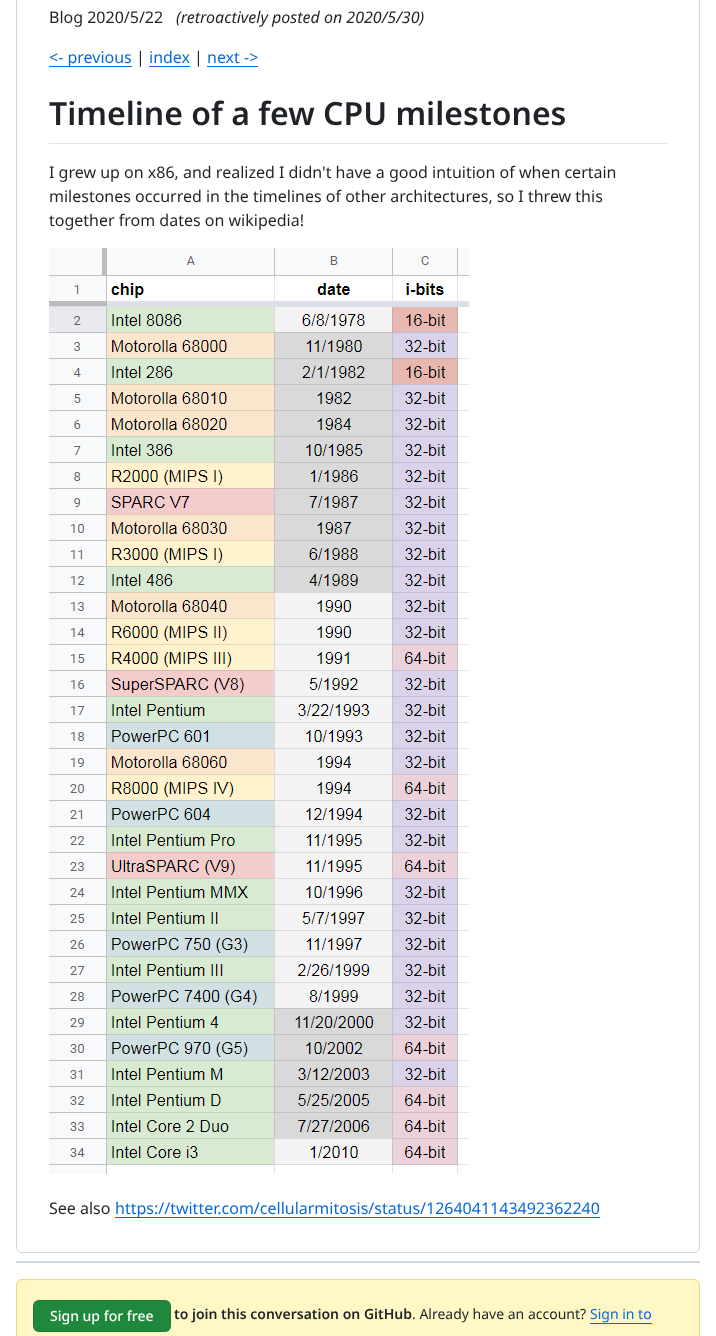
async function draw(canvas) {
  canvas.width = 716
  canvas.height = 1336
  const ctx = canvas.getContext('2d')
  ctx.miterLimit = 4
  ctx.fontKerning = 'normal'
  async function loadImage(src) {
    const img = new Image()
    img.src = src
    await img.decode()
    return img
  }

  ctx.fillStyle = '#fff'
  ctx.fillRect(0, 0, 716, 1336)
  ctx.beginPath()
  ctx.roundRect(16.5, -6.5, 683, 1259, 5.5)
  ctx.strokeStyle = '#d1d9e0'
  ctx.stroke()
  ctx.fillStyle = '#d1d9e0'
  ctx.fillRect(20, 1252, 676, 1)
  ctx.font = '16px Noto Sans'
  ctx.fillStyle = '#1f2328'
  ctx.fillText('Blog 2020/5/22', 49, 23)
  ctx.font = 'italic 16px Noto Sans'
  ctx.fillText('(retroactively posted on 2020/5/30)', 176, 23)
  ctx.fillStyle = '#0969da'
  ctx.fillRect(49, 66, 83, 1)
  ctx.font = '16px Noto Sans'
  ctx.fillText('<- previous', 49, 63)
  ctx.fillStyle = '#1f2328'
  ctx.fillText('|', 136, 63)
  ctx.fillStyle = '#0969da'
  ctx.fillText('index', 149, 63)
  ctx.fillRect(149, 66, 41, 1)
  ctx.fillStyle = '#1f2328'
  ctx.fillText('|', 194, 63)
  ctx.fillStyle = '#0969da'
  ctx.fillText('next ->', 207, 63)
  ctx.fillRect(207, 66, 51, 1)
  ctx.fillStyle = '#dfe4e9'
  ctx.fillRect(49, 143, 618, 1)
  ctx.font = '600 32px Noto Sans'
  ctx.fillStyle = '#1f2328'
  ctx.fillText('Timeline of a few CPU milestones', 49, 125)
  ctx.font = '16px Noto Sans'
  ctx.fillText('I grew up on x86, and realized I didn\'t have a good intuition of when certain', 49, 178)
  ctx.fillText('milestones occurred in the timelines of other architectures, so I threw this', 49, 202)
  ctx.fillText('together from dates on wikipedia!', 49, 226)
  ctx.drawImage(await loadImage('image0.png'), 49, 248, 420, 926)
  ctx.fillText('See also', 49, 1214)
  ctx.fillStyle = '#0969da'
  ctx.fillRect(115, 1217, 485, 1)
  ctx.fillText('https://twitter.com/cellularmitosis/status/1264041143492362240', 115, 1214)
  ctx.fillStyle = '#d1d9e0'
  ctx.fillRect(16, 1261, 684, 2)
  ctx.fillStyle = '#fff8c5'
  ctx.beginPath()
  ctx.roundRect(16, 1279, 684, 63, 6)
  ctx.fill()
  ctx.beginPath()
  ctx.roundRect(16.5, 1279.5, 683, 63, 5.5)
  ctx.strokeStyle = '#d4a72c66'
  ctx.stroke()
  ctx.fillStyle = '#1f883d'
  ctx.beginPath()
  ctx.roundRect(33, 1300, 138, 32, 6)
  ctx.fill()
  ctx.beginPath()
  ctx.roundRect(33.5, 1300.5, 137, 31, 5.5)
  ctx.strokeStyle = '#1f232826'
  ctx.stroke()
  ctx.font = '500 14px Noto Sans'
  ctx.fillStyle = '#fff'
  ctx.fillText('Sign up for free', 50, 1321)
  ctx.font = '600 14px Noto Sans'
  ctx.fillStyle = '#1f2328'
  ctx.fillText('to join this conversation on GitHub', 174, 1319)
  ctx.font = '14px Noto Sans'
  ctx.fillText('. Already have an account?', 412, 1319)
  ctx.fillStyle = '#0969da'
  ctx.fillText('Sign in to', 590, 1319)
  ctx.fillRect(590, 1323, 62, 1)
}

draw(document.querySelector('canvas'))
